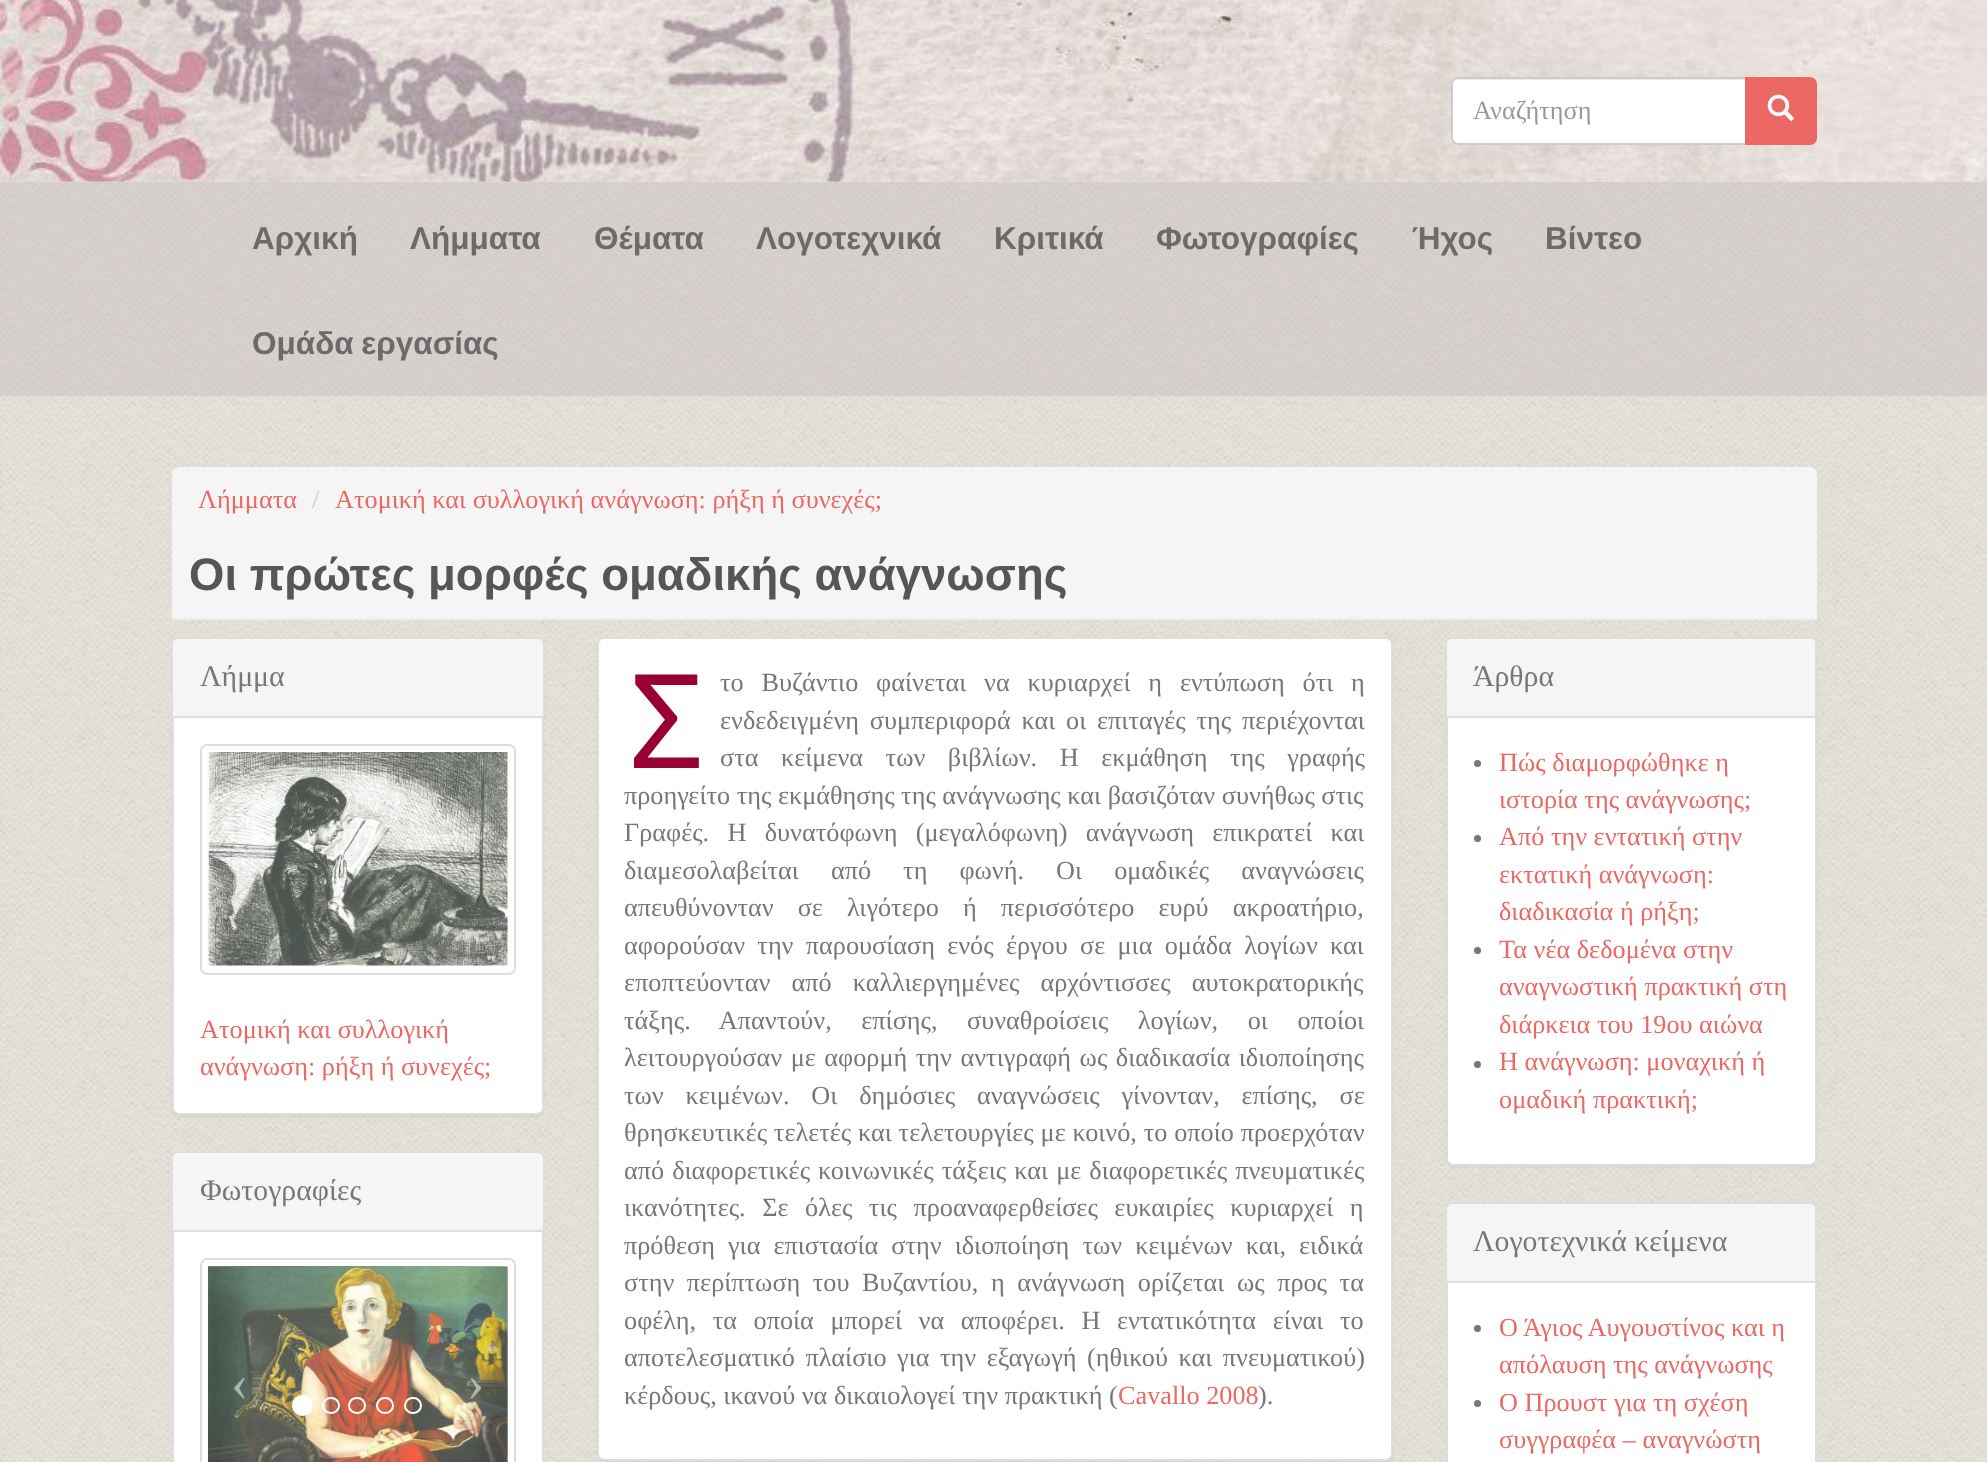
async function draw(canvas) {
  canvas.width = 1987
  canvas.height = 1462
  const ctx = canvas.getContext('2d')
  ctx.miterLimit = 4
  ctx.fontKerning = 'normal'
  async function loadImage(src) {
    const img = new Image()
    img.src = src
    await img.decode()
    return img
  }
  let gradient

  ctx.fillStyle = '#fff'
  ctx.fillRect(0, 0, 1987, 1462)
  ctx.drawImage(await loadImage('image0.png'), 0, 181, 1987, 1281)
  ctx.drawImage(await loadImage('image1.png'), 0, 0, 1987, 182)
  ctx.beginPath()
  ctx.roundRect(1451, 77, 296, 68, [7, 0, 0, 7])
  ctx.fill()
  ctx.fillStyle = '#ececec'
  ctx.beginPath()
  ctx.moveTo(1458, 80)
  ctx.lineTo(1745, 80)
  ctx.lineTo(1745, 79)
  ctx.lineTo(1458, 79)
  ctx.bezierCurveTo(1456, 79, 1454, 81, 1453, 83)
  ctx.bezierCurveTo(1454, 81, 1456, 80, 1458, 80)
  ctx.closePath()
  ctx.fill()
  ctx.beginPath()
  ctx.roundRect(1452, 78, 294, 66, [6, 0, 0, 6])
  ctx.strokeStyle = '#ccc'
  ctx.lineWidth = 2
  ctx.stroke()
  ctx.font = '26.25px Liberation Serif'
  ctx.fillStyle = '#999'
  ctx.fillText('Αναζήτηση', 1473, 119)
  ctx.fillStyle = '#eb6864'
  ctx.beginPath()
  ctx.roundRect(1746, 78, 70, 66, [0, 6, 6, 0])
  ctx.fill()
  ctx.strokeStyle = '#eb6864'
  ctx.stroke()
  ctx.drawImage(await loadImage('image2.png'), 1767, 94, 27, 27)
  ctx.fillStyle = '#c2b8bd66'
  ctx.fillRect(0, 182, 1987, 214)
  ctx.font = 'bold 31.5px Liberation Sans'
  ctx.fillStyle = '#6c6a6a'
  ctx.fillText('Αρχική', 252, 249)
  ctx.fillText('Λήμματα', 410, 249)
  ctx.fillText('Θέματα', 594, 249)
  ctx.fillText('Λογοτεχνικά', 756, 249)
  ctx.fillText('Κριτικά', 994, 249)
  ctx.fillText('Φωτογραφίες', 1156, 249)
  ctx.fillText('Ήχος', 1412, 249)
  ctx.fillText('Βίντεο', 1545, 249)
  ctx.wordSpacing = '-1px'
  ctx.fillText('Ομάδα εργασίας', 252, 354)
  ctx.fillStyle = '#f5f5f5'
  ctx.beginPath()
  ctx.roundRect(172, 467, 1645, 65, [7, 7, 0, 0])
  ctx.fill()
  ctx.wordSpacing = '0px'
  ctx.font = '26.25px Liberation Serif'
  ctx.fillStyle = '#eb6864'
  ctx.fillText('Λήμματα', 198, 508)
  ctx.fillStyle = '#ccc'
  ctx.fillText('/', 312, 508)
  ctx.fillStyle = '#eb6864'
  ctx.fillText('Ατομική και συλλογική ανάγνωση: ρήξη ή συνεχές;', 335, 508)
  ctx.fillStyle = '#f5f5f5'
  ctx.fillRect(172, 532, 1645, 86)
  ctx.fillStyle = '#eee'
  ctx.fillRect(172, 618, 1645, 2)
  ctx.font = 'bold 45.5px Liberation Sans'
  ctx.fillStyle = '#565656'
  ctx.fillText('Οι πρώτες μορφές ομαδικής ανάγνωσης', 189, 590)
  ctx.fillStyle = '#0000000d'
  ctx.filter = 'blur(1px)'
  ctx.beginPath()
  ctx.roundRect(172, 639, 372, 478, 7)
  ctx.fill()
  ctx.filter = 'none'
  ctx.fillStyle = '#fff'
  ctx.beginPath()
  ctx.roundRect(173, 638, 370, 476, 6)
  ctx.fill()
  ctx.strokeStyle = '#ddd'
  ctx.stroke()
  ctx.fillStyle = '#f5f5f5'
  ctx.beginPath()
  ctx.roundRect(173, 639, 370, 79, [5, 5, 0, 0])
  ctx.fill()
  ctx.fillStyle = '#ddd'
  ctx.fillRect(173, 716, 370, 2)
  ctx.font = '29.75px Liberation Serif'
  ctx.fillStyle = '#777'
  ctx.fillText('Λήμμα', 200, 686)
  ctx.beginPath()
  ctx.roundRect(201, 745, 314, 229, 6)
  ctx.stroke()
  ctx.drawImage(await loadImage('image3.png'), 208, 752, 300, 214)
  ctx.font = '26.25px Liberation Serif'
  ctx.fillStyle = '#eb6864'
  ctx.fillText('Ατομική και συλλογική', 200, 1038)
  ctx.fillText('ανάγνωση: ρήξη ή συνεχές;', 200, 1075)
  ctx.fillStyle = '#fff'
  ctx.beginPath()
  ctx.roundRect(173, 1153, 370, 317, 6)
  ctx.fill()
  ctx.stroke()
  ctx.fillStyle = '#f5f5f5'
  ctx.beginPath()
  ctx.roundRect(173, 1153, 370, 79, [5, 5, 0, 0])
  ctx.fill()
  ctx.fillStyle = '#ddd'
  ctx.fillRect(173, 1230, 370, 2)
  ctx.font = '29.75px Liberation Serif'
  ctx.fillStyle = '#777'
  ctx.fillText('Φωτογραφίες', 200, 1200)
  ctx.beginPath()
  ctx.roundRect(201, 1259, 314, 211, 6)
  ctx.stroke()
  ctx.drawImage(await loadImage('image4.png'), 208, 1266, 300, 196)
  ctx.font = '52px Liberation Serif'
  ctx.fillStyle = '#aab3ae'
  ctx.fillText('‹', 231, 1400)
  gradient = ctx.createLinearGradient(462, 1374, 508, 1374)
  gradient.addColorStop(0, '#00000000')
  gradient.addColorStop(1, '#00000040')
  ctx.fillStyle = gradient
  ctx.fillRect(466, 1267, 42, 195)
  ctx.fillStyle = '#b1b3ac'
  ctx.fillText('›', 467, 1400)
  ctx.fillStyle = '#fff'
  ctx.beginPath()
  ctx.arc(302.5, 1405.5, 9.5, 0, 2 * Math.PI)
  ctx.fill()
  ctx.strokeStyle = '#fff'
  ctx.stroke()
  ctx.beginPath()
  ctx.roundRect(323, 1398, 16, 15, 7.5)
  ctx.stroke()
  ctx.beginPath()
  ctx.roundRect(349, 1398, 16, 15, 7.5)
  ctx.stroke()
  ctx.beginPath()
  ctx.roundRect(377, 1398, 16, 15, 7.5)
  ctx.stroke()
  ctx.beginPath()
  ctx.roundRect(405, 1398, 16, 15, 7.5)
  ctx.stroke()
  ctx.fillStyle = '#0000000d'
  ctx.filter = 'blur(1px)'
  ctx.beginPath()
  ctx.roundRect(597, 639, 796, 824, 7)
  ctx.fill()
  ctx.filter = 'none'
  ctx.fillStyle = '#fff'
  ctx.beginPath()
  ctx.roundRect(598, 638, 794, 822, 6)
  ctx.fill()
  ctx.strokeStyle = '#ddd'
  ctx.stroke()
  ctx.font = '131px Noto Sans'
  ctx.fillStyle = '#903'
  ctx.fillText('Σ', 629, 768)
  ctx.wordSpacing = '11.25px'
  ctx.font = '26.25px Liberation Serif'
  ctx.fillStyle = '#777'
  ctx.fillText('το Βυζάντιο φαίνεται να κυριαρχεί η εντύπωση ότι η', 720, 691)
  ctx.wordSpacing = '4.25px'
  ctx.fillText('ενδεδειγμένη συμπεριφορά και οι επιταγές της περιέχονται', 720, 729)
  ctx.wordSpacing = '16px'
  ctx.fillText('στα κείμενα των βιβλίων. Η εκμάθηση της γραφής', 720, 766)
  ctx.wordSpacing = '0px'
  ctx.fillText('προηγείτο της εκμάθησης της ανάγνωσης και βασιζόταν συνήθως στις', 624, 804)
  ctx.wordSpacing = '11.75px'
  ctx.fillText('Γραφές. Η δυνατόφωνη (μεγαλόφωνη) ανάγνωση επικρατεί και', 624, 841)
  ctx.wordSpacing = '25.5px'
  ctx.fillText('διαμεσολαβείται από τη φωνή. Οι ομαδικές αναγνώσεις', 624, 879)
  ctx.wordSpacing = '17.5px'
  ctx.fillText('απευθύνονταν σε λιγότερο ή περισσότερο ευρύ ακροατήριο,', 624, 916)
  ctx.wordSpacing = '5.75px'
  ctx.fillText('αφορούσαν την παρουσίαση ενός έργου σε μια ομάδα λογίων και', 624, 954)
  ctx.wordSpacing = '14.5px'
  ctx.fillText('εποπτεύονταν από καλλιεργημένες αρχόντισσες αυτοκρατορικής', 624, 991)
  ctx.wordSpacing = '23px'
  ctx.fillText('τάξης. Απαντούν, επίσης, συναθροίσεις λογίων, οι οποίοι', 624, 1029)
  ctx.wordSpacing = '2px'
  ctx.fillText('λειτουργούσαν με αφορμή την αντιγραφή ως διαδικασία ιδιοποίησης', 624, 1066)
  ctx.wordSpacing = '15.25px'
  ctx.fillText('των κειμένων. Οι δημόσιες αναγνώσεις γίνονταν, επίσης, σε', 624, 1104)
  ctx.wordSpacing = '0.25px'
  ctx.fillText('θρησκευτικές τελετές και τελετουργίες με κοινό, το οποίο προερχόταν', 624, 1141)
  ctx.wordSpacing = '1.5px'
  ctx.fillText('από διαφορετικές κοινωνικές τάξεις και με διαφορετικές πνευματικές', 624, 1179)
  ctx.wordSpacing = '10px'
  ctx.fillText('ικανότητες. Σε όλες τις προαναφερθείσες ευκαιρίες κυριαρχεί η', 624, 1216)
  ctx.wordSpacing = '6.5px'
  ctx.fillText('πρόθεση για επιστασία στην ιδιοποίηση των κειμένων και, ειδικά', 624, 1254)
  ctx.wordSpacing = '6px'
  ctx.fillText('στην περίπτωση του Βυζαντίου, η ανάγνωση ορίζεται ως προς τα', 624, 1291)
  ctx.wordSpacing = '10px'
  ctx.fillText('οφέλη, τα οποία μπορεί να αποφέρει. Η εντατικότητα είναι το', 624, 1329)
  ctx.wordSpacing = '4px'
  ctx.fillText('αποτελεσματικό πλαίσιο για την εξαγωγή (ηθικού και πνευματικού)', 624, 1366)
  ctx.wordSpacing = '0px'
  ctx.fillText('κέρδους, ικανού να δικαιολογεί την πρακτική (', 624, 1404)
  ctx.fillStyle = '#eb6864'
  ctx.fillText('Cavallo 2008', 1118, 1404)
  ctx.fillStyle = '#777'
  ctx.fillText(').', 1258, 1404)
  ctx.fillStyle = '#0000000d'
  ctx.filter = 'blur(1px)'
  ctx.beginPath()
  ctx.roundRect(1446, 639, 371, 528, 7)
  ctx.fill()
  ctx.filter = 'none'
  ctx.fillStyle = '#fff'
  ctx.beginPath()
  ctx.roundRect(1447, 638, 369, 527, 6)
  ctx.fill()
  ctx.stroke()
  ctx.fillStyle = '#f5f5f5'
  ctx.beginPath()
  ctx.roundRect(1447, 639, 368, 79, [5, 5, 0, 0])
  ctx.fill()
  ctx.fillStyle = '#ddd'
  ctx.fillRect(1447, 716, 368, 2)
  ctx.font = '29.75px Liberation Serif'
  ctx.fillStyle = '#777'
  ctx.fillText('Άρθρα', 1473, 686)
  ctx.beginPath()
  ctx.arc(1477.5, 763.5, 3.5, 0, 2 * Math.PI)
  ctx.fill()
  ctx.font = '26.25px Liberation Serif'
  ctx.fillStyle = '#eb6864'
  ctx.fillText('Πώς διαμορφώθηκε η', 1499, 771)
  ctx.fillText('ιστορία της ανάγνωσης;', 1499, 808)
  ctx.fillStyle = '#777'
  ctx.beginPath()
  ctx.arc(1477.5, 838.5, 3.5, 0, 2 * Math.PI)
  ctx.fill()
  ctx.fillStyle = '#eb6864'
  ctx.fillText('Από την εντατική στην', 1499, 845)
  ctx.fillText('εκτατική ανάγνωση:', 1499, 883)
  ctx.fillText('διαδικασία ή ρήξη;', 1499, 920)
  ctx.fillStyle = '#777'
  ctx.beginPath()
  ctx.arc(1477.5, 950.5, 3.5, 0, 2 * Math.PI)
  ctx.fill()
  ctx.fillStyle = '#eb6864'
  ctx.fillText('Τα νέα δεδομένα στην', 1499, 958)
  ctx.fillText('αναγνωστική πρακτική στη', 1499, 995)
  ctx.fillText('διάρκεια του 19ου αιώνα', 1499, 1033)
  ctx.fillStyle = '#777'
  ctx.beginPath()
  ctx.arc(1477.5, 1064.5, 3.5, 0, 2 * Math.PI)
  ctx.fill()
  ctx.fillStyle = '#eb6864'
  ctx.fillText('Η ανάγνωση: μοναχική ή', 1499, 1070)
  ctx.fillText('ομαδική πρακτική;', 1499, 1108)
  ctx.fillStyle = '#fff'
  ctx.beginPath()
  ctx.roundRect(1447, 1203, 369, 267, 6)
  ctx.fill()
  ctx.stroke()
  ctx.fillStyle = '#f5f5f5'
  ctx.beginPath()
  ctx.roundRect(1447, 1204, 368, 79, [5, 5, 0, 0])
  ctx.fill()
  ctx.fillStyle = '#ddd'
  ctx.fillRect(1447, 1281, 368, 2)
  ctx.font = '29.75px Liberation Serif'
  ctx.fillStyle = '#777'
  ctx.fillText('Λογοτεχνικά κείμενα', 1473, 1251)
  ctx.beginPath()
  ctx.arc(1477.5, 1328.5, 3.5, 0, 2 * Math.PI)
  ctx.fill()
  ctx.font = '26.25px Liberation Serif'
  ctx.fillStyle = '#eb6864'
  ctx.fillText('Ο Άγιος Αυγουστίνος και η', 1499, 1336)
  ctx.fillText('απόλαυση της ανάγνωσης', 1499, 1373)
  ctx.fillStyle = '#777'
  ctx.beginPath()
  ctx.arc(1477.5, 1403.5, 3.5, 0, 2 * Math.PI)
  ctx.fill()
  ctx.fillStyle = '#eb6864'
  ctx.fillText('Ο Προυστ για τη σχέση', 1499, 1411)
  ctx.fillText('συγγραφέα – αναγνώστη', 1499, 1448)
}

draw(document.querySelector('canvas'))
